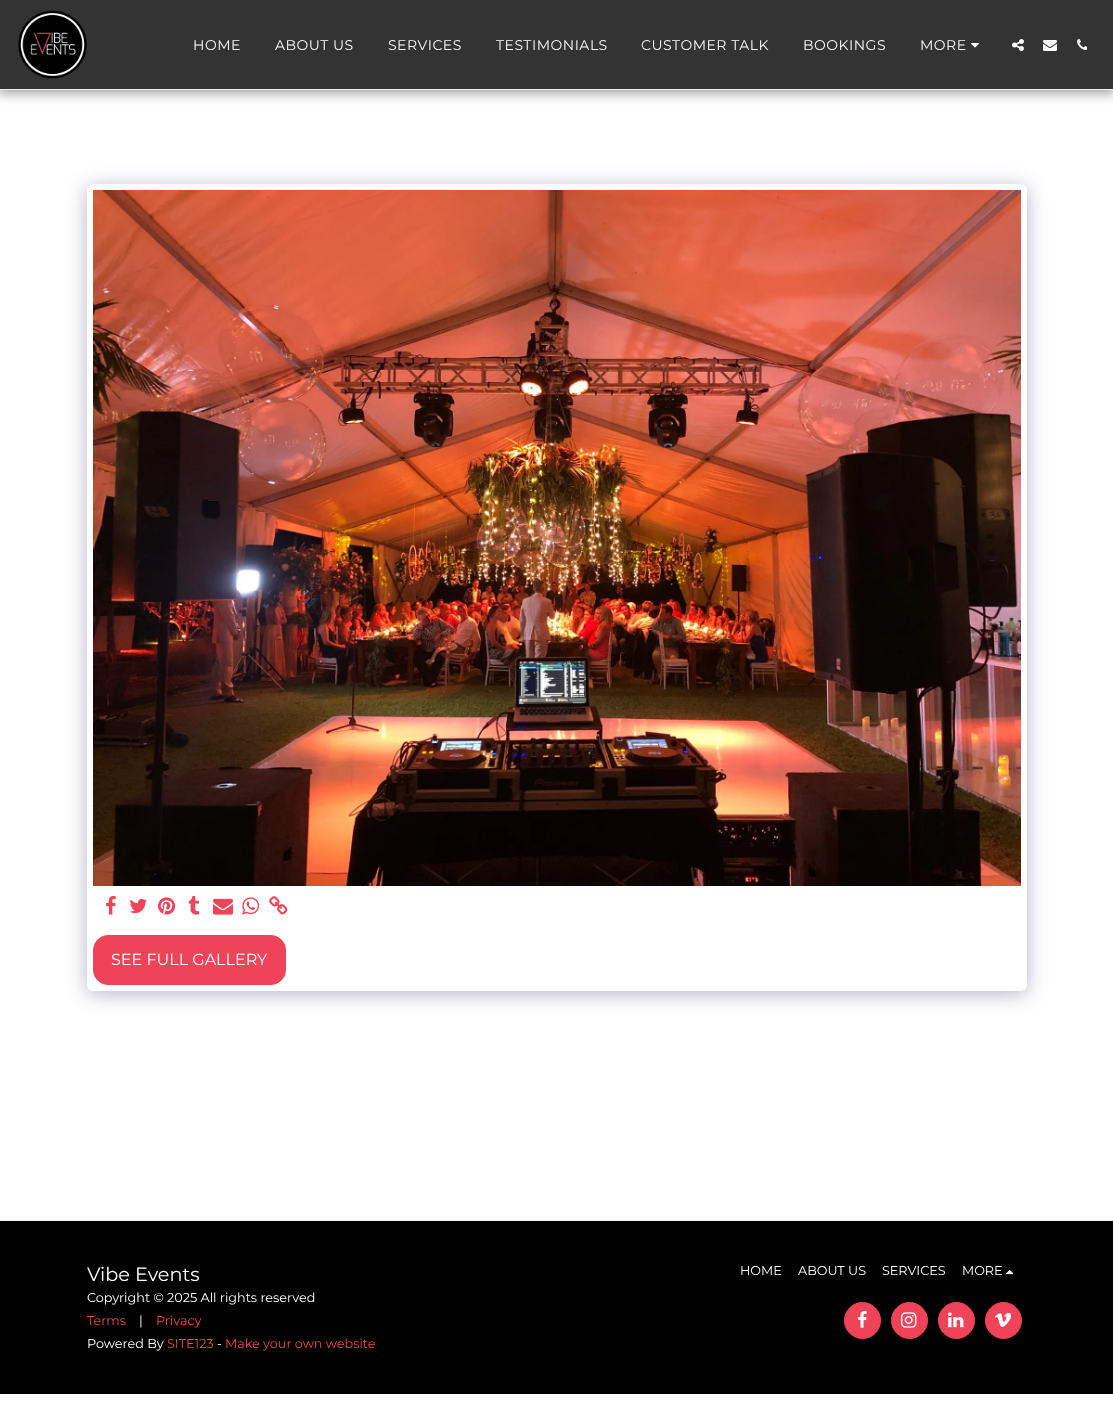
async function draw(canvas) {
  canvas.width = 1113
  canvas.height = 1413
  const ctx = canvas.getContext('2d')
  ctx.miterLimit = 4
  ctx.fontKerning = 'normal'
  async function loadImage(src) {
    const img = new Image()
    img.src = src
    await img.decode()
    return img
  }

  ctx.fillStyle = '#fff'
  ctx.fillRect(0, 0, 1113, 1413)
  ctx.fillStyle = '#00000059'
  ctx.filter = 'blur(6px)'
  ctx.beginPath()
  ctx.rect(-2, 0, 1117, 94)
  ctx.fill()
  ctx.filter = 'none'
  ctx.fillStyle = '#333'
  ctx.fillRect(0, 0, 1113, 89)
  ctx.fillStyle = '#f3eeee'
  ctx.fillRect(0, 89, 1113, 1)
  ctx.drawImage(await loadImage('image0.png'), 18, 10, 69, 69)
  ctx.letterSpacing = '0.5px'
  ctx.font = '14px Montserrat'
  ctx.fillStyle = '#f9f9f9'
  ctx.fillText('HOME', 193, 50)
  ctx.fillText('ABOUT US', 275, 50)
  ctx.fillText('SERVICES', 388, 50)
  ctx.fillText('TESTIMONIALS', 496, 50)
  ctx.fillText('CUSTOMER TALK', 641, 50)
  ctx.fillText('BOOKINGS', 803, 50)
  ctx.fillText('MORE', 920, 50)
  ctx.drawImage(await loadImage('image1.png'), 971, 43, 8, 5)
  ctx.drawImage(await loadImage('image2.png'), 1012, 39, 12, 12)
  ctx.drawImage(await loadImage('image3.png'), 1043, 40, 14, 11)
  ctx.drawImage(await loadImage('image4.png'), 1077, 39, 10, 11)
  ctx.fillStyle = '#4d3f7a66'
  ctx.filter = 'blur(10px)'
  ctx.beginPath()
  ctx.roundRect(87, 187, 940, 807, 6)
  ctx.fill()
  ctx.filter = 'none'
  ctx.fillStyle = '#fff'
  ctx.beginPath()
  ctx.roundRect(87, 184, 940, 807, 6)
  ctx.fill()
  ctx.drawImage(await loadImage('image5.png'), 93, 190, 928, 696)
  ctx.drawImage(await loadImage('image6.png'), 106, 896, 10, 19)
  ctx.drawImage(await loadImage('image7.png'), 129, 898, 18, 16)
  ctx.drawImage(await loadImage('image8.png'), 158, 897, 17, 18)
  ctx.drawImage(await loadImage('image9.png'), 188, 896, 12, 19)
  ctx.drawImage(await loadImage('image10.png'), 213, 898, 20, 17)
  ctx.drawImage(await loadImage('image11.png'), 242, 897, 17, 18)
  ctx.drawImage(await loadImage('image12.png'), 269, 896, 19, 19)
  ctx.fillStyle = '#ef435a'
  ctx.beginPath()
  ctx.roundRect(93.5, 935.5, 192, 49, 14.5)
  ctx.fill()
  ctx.strokeStyle = '#ef435a'
  ctx.stroke()
  ctx.letterSpacing = '0px'
  ctx.font = '16px Montserrat'
  ctx.fillStyle = '#fff'
  ctx.fillText('SEE FULL GALLERY', 111, 965)
  ctx.fillStyle = '#000'
  ctx.fillRect(0, 1221, 1113, 173)
  ctx.fillStyle = '#f3eeee'
  ctx.fillRect(0, 1220, 1113, 1)
  ctx.font = '19.25px Montserrat'
  ctx.fillStyle = '#fff'
  ctx.fillText('Vibe Events', 87, 1281)
  ctx.font = '12.75px Montserrat'
  ctx.fillText('Copyright © 2025 All rights reserved', 87, 1302)
  ctx.fillStyle = '#ef435a'
  ctx.fillText('Terms', 87, 1325)
  ctx.fillStyle = '#fff'
  ctx.fillText('|', 139, 1325)
  ctx.fillStyle = '#ef435a'
  ctx.fillText('Privacy', 156, 1325)
  ctx.fillStyle = '#fff'
  ctx.fillText('Powered By', 87, 1348)
  ctx.fillStyle = '#ef435a'
  ctx.fillText('SITE123', 167, 1348)
  ctx.fillStyle = '#fff'
  ctx.fillText('-', 217, 1348)
  ctx.fillStyle = '#ef435a'
  ctx.fillText('Make your own website', 225, 1348)
  ctx.fillStyle = '#fff'
  ctx.fillText('HOME', 740, 1275)
  ctx.fillText('ABOUT US', 798, 1275)
  ctx.fillText('SERVICES', 882, 1275)
  ctx.fillText('MORE', 962, 1275)
  ctx.drawImage(await loadImage('image13.png'), 1006, 1270, 7, 5)
  ctx.fillStyle = '#ef435a'
  ctx.beginPath()
  ctx.arc(862.5, 1320.5, 18, 0, 2 * Math.PI)
  ctx.fill()
  ctx.stroke()
  ctx.drawImage(await loadImage('image14.png'), 857, 1311, 10, 17)
  ctx.beginPath()
  ctx.arc(909.5, 1320.5, 18, 0, 2 * Math.PI)
  ctx.fill()
  ctx.stroke()
  ctx.drawImage(await loadImage('image15.png'), 901, 1312, 16, 16)
  ctx.beginPath()
  ctx.arc(956.5, 1320.5, 18, 0, 2 * Math.PI)
  ctx.fill()
  ctx.stroke()
  ctx.drawImage(await loadImage('image16.png'), 948, 1312, 16, 16)
  ctx.beginPath()
  ctx.arc(1003.5, 1320.5, 18, 0, 2 * Math.PI)
  ctx.fill()
  ctx.stroke()
  ctx.drawImage(await loadImage('image17.png'), 994, 1312, 17, 15)
}

draw(document.querySelector('canvas'))
